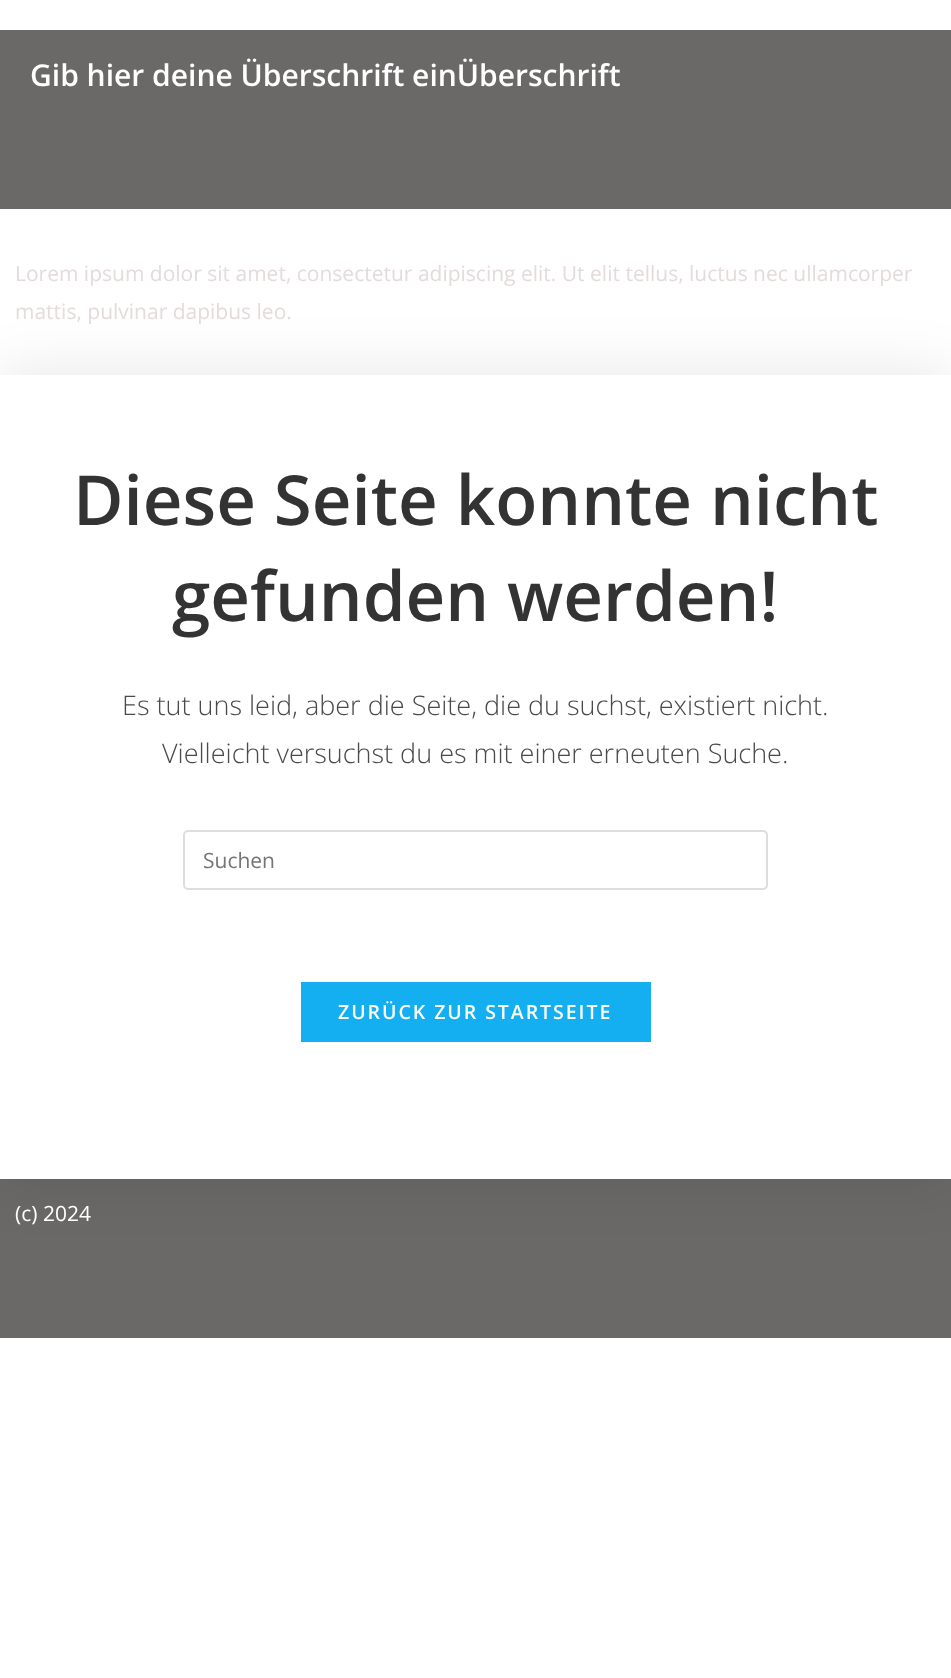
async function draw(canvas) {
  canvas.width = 951
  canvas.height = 1678
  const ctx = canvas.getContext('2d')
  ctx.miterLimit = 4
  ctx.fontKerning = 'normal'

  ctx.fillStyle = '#fff'
  ctx.fillRect(0, 0, 951, 1678)
  ctx.fillStyle = '#6b6868'
  ctx.fillRect(0, 30, 951, 179)
  ctx.font = '600 30px Open Sans'
  ctx.fillStyle = '#fff'
  ctx.fillText('Gib hier deine Überschrift einÜberschrift', 30, 86)
  ctx.font = '21px Open Sans'
  ctx.fillStyle = '#e4dbdb'
  ctx.fillText('Lorem ipsum dolor sit amet, consectetur adipiscing elit. Ut elit tellus, luctus nec ullamcorper', 15, 281)
  ctx.fillText('mattis, pulvinar dapibus leo.', 15, 319)
  ctx.fillStyle = '#6b6868'
  ctx.fillRect(0, 1179, 951, 159)
  ctx.save()
  ctx.beginPath()
  ctx.moveTo(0, 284)
  ctx.lineTo(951, 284)
  ctx.lineTo(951, 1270)
  ctx.lineTo(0, 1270)
  ctx.closePath()
  ctx.moveTo(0, 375)
  ctx.lineTo(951, 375)
  ctx.lineTo(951, 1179)
  ctx.lineTo(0, 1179)
  ctx.closePath()
  ctx.clip('evenodd')
  ctx.fillStyle = '#0000001a'
  ctx.filter = 'blur(30px)'
  ctx.beginPath()
  ctx.rect(0, 375, 951, 804)
  ctx.fill()
  ctx.filter = 'none'
  ctx.restore()
  ctx.font = '600 69px Open Sans'
  ctx.fillStyle = '#333'
  ctx.fillText('Diese Seite konnte nicht', 73, 525)
  ctx.fillText('gefunden werden!', 172, 621)
  ctx.font = '300 27px Open Sans'
  ctx.fillStyle = '#4a4a4a'
  ctx.fillText('Es tut uns leid, aber die Seite, die du suchst, existiert nicht.', 122, 715)
  ctx.fillText('Vielleicht versuchst du es mit einer erneuten Suche.', 162, 763)
  ctx.beginPath()
  ctx.roundRect(184, 831, 583, 58, 4)
  ctx.strokeStyle = '#ddd'
  ctx.lineWidth = 2
  ctx.stroke()
  ctx.font = '21px Open Sans'
  ctx.fillStyle = '#757575'
  ctx.fillText('Suchen', 203, 868)
  ctx.fillStyle = '#13aff0'
  ctx.fillRect(301, 982, 350, 60)
  ctx.letterSpacing = '1.95px'
  ctx.font = '600 19.5px Open Sans'
  ctx.fillStyle = '#fff'
  ctx.fillText('ZURÜCK ZUR STARTSEITE', 338, 1019)
  ctx.letterSpacing = '0px'
  ctx.font = '21px Open Sans'
  ctx.fillText('(c) 2024', 15, 1221)
}

draw(document.querySelector('canvas'))
